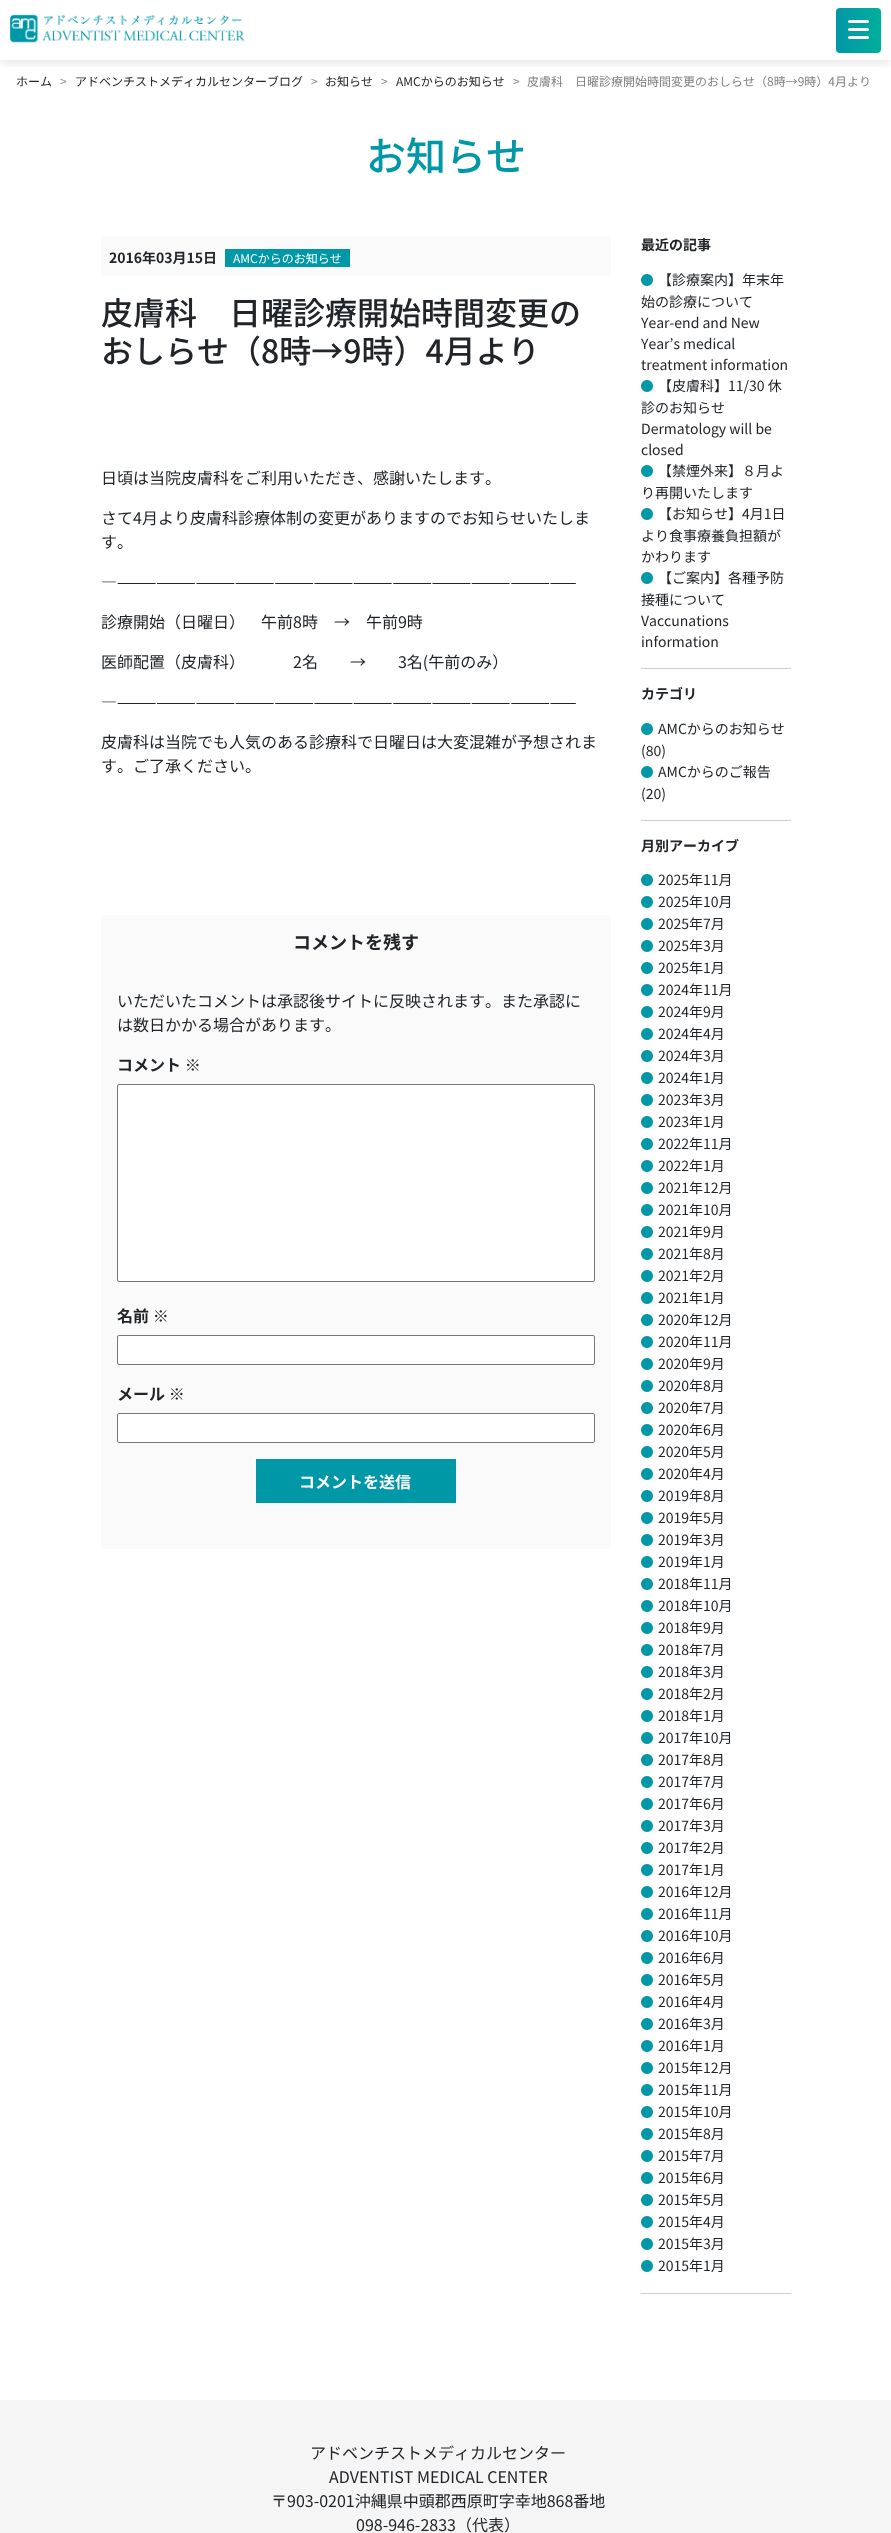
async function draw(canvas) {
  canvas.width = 891
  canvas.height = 2533
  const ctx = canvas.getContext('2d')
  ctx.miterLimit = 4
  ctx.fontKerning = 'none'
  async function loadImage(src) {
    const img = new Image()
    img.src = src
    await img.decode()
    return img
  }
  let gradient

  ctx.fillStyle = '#fff'
  ctx.fillRect(0, 0, 891, 2533)
  ctx.save()
  ctx.beginPath()
  ctx.rect(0, 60, 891, 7)
  ctx.clip()
  ctx.fillStyle = '#0000001a'
  ctx.filter = 'blur(5px)'
  ctx.beginPath()
  ctx.rect(0, 3, 891, 60)
  ctx.fill()
  ctx.filter = 'none'
  ctx.restore()
  ctx.drawImage(await loadImage('image0.png'), 10, 14, 235, 29)
  gradient = ctx.createLinearGradient(836, 31, 881, 31)
  gradient.addColorStop(0, '#0097a7')
  gradient.addColorStop(1, '#00af9c')
  ctx.fillStyle = gradient
  ctx.beginPath()
  ctx.roundRect(836, 8, 45, 45, 4)
  ctx.fill()
  ctx.fillStyle = '#fff'
  ctx.beginPath()
  ctx.roundRect(848, 20, 21, 3, 1.5)
  ctx.fill()
  ctx.beginPath()
  ctx.roundRect(848, 28, 21, 3, 1.5)
  ctx.fill()
  ctx.beginPath()
  ctx.roundRect(848, 36, 21, 3, 1.5)
  ctx.fill()
  ctx.font = '12px Noto Sans JP'
  ctx.fillStyle = '#212529'
  ctx.fillText('ホーム', 16, 86)
  ctx.fillStyle = '#868e96'
  ctx.fillText('>', 60, 86)
  ctx.fillStyle = '#212529'
  ctx.fillText('アドベンチストメディカルセンターブログ', 75, 86)
  ctx.fillStyle = '#868e96'
  ctx.fillText('>', 311, 86)
  ctx.fillStyle = '#212529'
  ctx.fillText('お知らせ', 325, 86)
  ctx.fillStyle = '#868e96'
  ctx.fillText('>', 381, 86)
  ctx.fillStyle = '#212529'
  ctx.fillText('AMCからのお知らせ', 396, 86)
  ctx.fillStyle = '#868e96'
  ctx.fillText('>', 513, 86)
  ctx.fillStyle = '#808080'
  ctx.fillText('皮膚科　日曜診療開始時間変更のおしらせ（8時→9時）4月より', 527, 86)
  ctx.font = '500 40px Noto Sans JP'
  ctx.fillStyle = '#0097a7'
  ctx.fillText('お知らせ', 366, 171)
  ctx.fillStyle = '#fafafa'
  ctx.fillRect(101, 236, 510, 40)
  ctx.font = 'bold 14px Noto Sans JP'
  ctx.fillStyle = '#212529'
  ctx.fillText('2016年03月15日', 109, 263)
  ctx.fillStyle = '#0097a7'
  ctx.fillRect(225, 249, 125, 18)
  ctx.font = '12px Noto Sans JP'
  ctx.fillStyle = '#fff'
  ctx.fillText('AMCからのお知らせ', 233, 263)
  ctx.font = '500 32px Noto Sans JP'
  ctx.fillStyle = '#212529'
  ctx.fillText('皮膚科　日曜診療開始時間変更の', 101, 325)
  ctx.fillText('おしらせ（8時→9時）4月より', 101, 363)
  ctx.font = '16px Noto Sans JP'
  ctx.fillText('日頃は当院皮膚科をご利用いただき、感謝いたします。', 101, 484)
  ctx.fillText('さて4月より皮膚科診療体制の変更がありますのでお知らせいたしま', 101, 524)
  ctx.fillText('す。', 101, 548)
  ctx.fillText('―———————————————————————————————————', 101, 588)
  ctx.fillText('診療開始（日曜日）', 101, 628)
  ctx.fillText('　午前8時　→　午前9時', 245, 628)
  ctx.fillText('医師配置（皮膚科）', 101, 668)
  ctx.fillText('　　　2名　　→　　3名(午前のみ）', 245, 668)
  ctx.fillText('―———————————————————————————————————', 101, 708)
  ctx.fillText('皮膚科は当院でも人気のある診療科で日曜日は大変混雑が予想されま', 101, 748)
  ctx.fillText('す。ご了承ください。', 101, 772)
  ctx.fillStyle = '#fafafa'
  ctx.fillRect(101, 915, 510, 634)
  ctx.font = 'bold 18px Noto Sans JP'
  ctx.fillStyle = '#212529'
  ctx.fillText('コメントを残す', 293, 949)
  ctx.font = '16px Noto Sans JP'
  ctx.fillText('いただいたコメントは承認後サイトに反映されます。また承認に', 117, 1007)
  ctx.fillText('は数日かかる場合があります。', 117, 1031)
  ctx.font = 'bold 16px Noto Sans JP'
  ctx.fillText('コメント ※', 117, 1071)
  ctx.fillStyle = '#fff'
  ctx.beginPath()
  ctx.roundRect(117.5, 1084.5, 477, 197, 1.5)
  ctx.fill()
  ctx.strokeStyle = '#767676'
  ctx.stroke()
  ctx.fillStyle = '#212529'
  ctx.fillText('名前 ※', 117, 1322)
  ctx.fillStyle = '#fff'
  ctx.beginPath()
  ctx.roundRect(117.5, 1335.5, 477, 29, 1.5)
  ctx.fill()
  ctx.stroke()
  ctx.fillStyle = '#212529'
  ctx.fillText('メール ※', 117, 1400)
  ctx.fillStyle = '#fff'
  ctx.beginPath()
  ctx.roundRect(117.5, 1413.5, 477, 29, 1.5)
  ctx.fill()
  ctx.stroke()
  ctx.fillStyle = '#0097a7'
  ctx.fillRect(256, 1459, 200, 44)
  ctx.fillStyle = '#fff'
  ctx.fillText('コメントを送信', 299, 1488)
  ctx.font = 'bold 14px Noto Sans JP'
  ctx.fillStyle = '#212529'
  ctx.fillText('最近の記事', 641, 250)
  ctx.fillStyle = '#ccc'
  ctx.fillRect(641, 668, 150, 1)
  ctx.drawImage(await loadImage('image1.png'), 641, 274, 12, 12)
  ctx.font = '14px Noto Sans JP'
  ctx.fillStyle = '#212529'
  ctx.fillText('【診療案内】年末年', 658, 285)
  ctx.fillText('始の診療について', 641, 307)
  ctx.fillText('Year-end and New', 641, 328)
  ctx.fillText('Year’s medical', 641, 349)
  ctx.fillText('treatment information', 641, 370)
  ctx.drawImage(await loadImage('image1.png'), 641, 380, 12, 12)
  ctx.fillText('【皮膚科】11/30 休', 658, 391)
  ctx.fillText('診のお知らせ', 641, 413)
  ctx.fillText('Dermatology will be', 641, 434)
  ctx.fillText('closed', 641, 455)
  ctx.drawImage(await loadImage('image1.png'), 641, 465, 12, 12)
  ctx.fillText('【禁煙外来】８月よ', 658, 476)
  ctx.fillText('り再開いたします', 641, 498)
  ctx.drawImage(await loadImage('image1.png'), 641, 508, 12, 12)
  ctx.fillText('【お知らせ】4月1日', 658, 519)
  ctx.fillText('より食事療養負担額が', 641, 541)
  ctx.fillText('かわります', 641, 562)
  ctx.drawImage(await loadImage('image1.png'), 641, 572, 12, 12)
  ctx.fillText('【ご案内】各種予防', 658, 583)
  ctx.fillText('接種について', 641, 605)
  ctx.fillText('Vaccunations', 641, 626)
  ctx.fillText('information', 641, 647)
  ctx.font = 'bold 14px Noto Sans JP'
  ctx.fillText('カテゴリ', 641, 699)
  ctx.fillStyle = '#ccc'
  ctx.fillRect(641, 820, 150, 1)
  ctx.drawImage(await loadImage('image1.png'), 641, 723, 12, 12)
  ctx.font = '14px Noto Sans JP'
  ctx.fillStyle = '#212529'
  ctx.fillText('AMCからのお知らせ', 658, 734)
  ctx.fillText('(80)', 641, 756)
  ctx.drawImage(await loadImage('image1.png'), 641, 766, 12, 12)
  ctx.fillText('AMCからのご報告', 658, 777)
  ctx.fillText('(20)', 641, 799)
  ctx.font = 'bold 14px Noto Sans JP'
  ctx.fillText('月別アーカイブ', 641, 851)
  ctx.fillStyle = '#ccc'
  ctx.fillRect(641, 2293, 150, 1)
  ctx.drawImage(await loadImage('image1.png'), 641, 874, 12, 12)
  ctx.font = '14px Noto Sans JP'
  ctx.fillStyle = '#212529'
  ctx.fillText('2025年11月', 658, 885)
  ctx.drawImage(await loadImage('image1.png'), 641, 896, 12, 12)
  ctx.fillText('2025年10月', 658, 907)
  ctx.drawImage(await loadImage('image1.png'), 641, 918, 12, 12)
  ctx.fillText('2025年7月', 658, 929)
  ctx.drawImage(await loadImage('image1.png'), 641, 940, 12, 12)
  ctx.fillText('2025年3月', 658, 951)
  ctx.drawImage(await loadImage('image1.png'), 641, 962, 12, 12)
  ctx.fillText('2025年1月', 658, 973)
  ctx.drawImage(await loadImage('image1.png'), 641, 984, 12, 12)
  ctx.fillText('2024年11月', 658, 995)
  ctx.drawImage(await loadImage('image1.png'), 641, 1006, 12, 12)
  ctx.fillText('2024年9月', 658, 1017)
  ctx.drawImage(await loadImage('image1.png'), 641, 1028, 12, 12)
  ctx.fillText('2024年4月', 658, 1039)
  ctx.drawImage(await loadImage('image1.png'), 641, 1050, 12, 12)
  ctx.fillText('2024年3月', 658, 1061)
  ctx.drawImage(await loadImage('image1.png'), 641, 1072, 12, 12)
  ctx.fillText('2024年1月', 658, 1083)
  ctx.drawImage(await loadImage('image1.png'), 641, 1094, 12, 12)
  ctx.fillText('2023年3月', 658, 1105)
  ctx.drawImage(await loadImage('image1.png'), 641, 1116, 12, 12)
  ctx.fillText('2023年1月', 658, 1127)
  ctx.drawImage(await loadImage('image1.png'), 641, 1138, 12, 12)
  ctx.fillText('2022年11月', 658, 1149)
  ctx.drawImage(await loadImage('image1.png'), 641, 1160, 12, 12)
  ctx.fillText('2022年1月', 658, 1171)
  ctx.drawImage(await loadImage('image1.png'), 641, 1182, 12, 12)
  ctx.fillText('2021年12月', 658, 1193)
  ctx.drawImage(await loadImage('image1.png'), 641, 1204, 12, 12)
  ctx.fillText('2021年10月', 658, 1215)
  ctx.drawImage(await loadImage('image1.png'), 641, 1226, 12, 12)
  ctx.fillText('2021年9月', 658, 1237)
  ctx.drawImage(await loadImage('image1.png'), 641, 1248, 12, 12)
  ctx.fillText('2021年8月', 658, 1259)
  ctx.drawImage(await loadImage('image1.png'), 641, 1270, 12, 12)
  ctx.fillText('2021年2月', 658, 1281)
  ctx.drawImage(await loadImage('image1.png'), 641, 1292, 12, 12)
  ctx.fillText('2021年1月', 658, 1303)
  ctx.drawImage(await loadImage('image1.png'), 641, 1314, 12, 12)
  ctx.fillText('2020年12月', 658, 1325)
  ctx.drawImage(await loadImage('image1.png'), 641, 1336, 12, 12)
  ctx.fillText('2020年11月', 658, 1347)
  ctx.drawImage(await loadImage('image1.png'), 641, 1358, 12, 12)
  ctx.fillText('2020年9月', 658, 1369)
  ctx.drawImage(await loadImage('image1.png'), 641, 1380, 12, 12)
  ctx.fillText('2020年8月', 658, 1391)
  ctx.drawImage(await loadImage('image1.png'), 641, 1402, 12, 12)
  ctx.fillText('2020年7月', 658, 1413)
  ctx.drawImage(await loadImage('image1.png'), 641, 1424, 12, 12)
  ctx.fillText('2020年6月', 658, 1435)
  ctx.drawImage(await loadImage('image1.png'), 641, 1446, 12, 12)
  ctx.fillText('2020年5月', 658, 1457)
  ctx.drawImage(await loadImage('image1.png'), 641, 1468, 12, 12)
  ctx.fillText('2020年4月', 658, 1479)
  ctx.drawImage(await loadImage('image1.png'), 641, 1490, 12, 12)
  ctx.fillText('2019年8月', 658, 1501)
  ctx.drawImage(await loadImage('image1.png'), 641, 1512, 12, 12)
  ctx.fillText('2019年5月', 658, 1523)
  ctx.drawImage(await loadImage('image1.png'), 641, 1534, 12, 12)
  ctx.fillText('2019年3月', 658, 1545)
  ctx.drawImage(await loadImage('image1.png'), 641, 1556, 12, 12)
  ctx.fillText('2019年1月', 658, 1567)
  ctx.drawImage(await loadImage('image1.png'), 641, 1578, 12, 12)
  ctx.fillText('2018年11月', 658, 1589)
  ctx.drawImage(await loadImage('image1.png'), 641, 1600, 12, 12)
  ctx.fillText('2018年10月', 658, 1611)
  ctx.drawImage(await loadImage('image1.png'), 641, 1622, 12, 12)
  ctx.fillText('2018年9月', 658, 1633)
  ctx.drawImage(await loadImage('image1.png'), 641, 1644, 12, 12)
  ctx.fillText('2018年7月', 658, 1655)
  ctx.drawImage(await loadImage('image1.png'), 641, 1666, 12, 12)
  ctx.fillText('2018年3月', 658, 1677)
  ctx.drawImage(await loadImage('image1.png'), 641, 1688, 12, 12)
  ctx.fillText('2018年2月', 658, 1699)
  ctx.drawImage(await loadImage('image1.png'), 641, 1710, 12, 12)
  ctx.fillText('2018年1月', 658, 1721)
  ctx.drawImage(await loadImage('image1.png'), 641, 1732, 12, 12)
  ctx.fillText('2017年10月', 658, 1743)
  ctx.drawImage(await loadImage('image1.png'), 641, 1754, 12, 12)
  ctx.fillText('2017年8月', 658, 1765)
  ctx.drawImage(await loadImage('image1.png'), 641, 1776, 12, 12)
  ctx.fillText('2017年7月', 658, 1787)
  ctx.drawImage(await loadImage('image1.png'), 641, 1798, 12, 12)
  ctx.fillText('2017年6月', 658, 1809)
  ctx.drawImage(await loadImage('image1.png'), 641, 1820, 12, 12)
  ctx.fillText('2017年3月', 658, 1831)
  ctx.drawImage(await loadImage('image1.png'), 641, 1842, 12, 12)
  ctx.fillText('2017年2月', 658, 1853)
  ctx.drawImage(await loadImage('image1.png'), 641, 1864, 12, 12)
  ctx.fillText('2017年1月', 658, 1875)
  ctx.drawImage(await loadImage('image1.png'), 641, 1886, 12, 12)
  ctx.fillText('2016年12月', 658, 1897)
  ctx.drawImage(await loadImage('image1.png'), 641, 1908, 12, 12)
  ctx.fillText('2016年11月', 658, 1919)
  ctx.drawImage(await loadImage('image1.png'), 641, 1930, 12, 12)
  ctx.fillText('2016年10月', 658, 1941)
  ctx.drawImage(await loadImage('image1.png'), 641, 1952, 12, 12)
  ctx.fillText('2016年6月', 658, 1963)
  ctx.drawImage(await loadImage('image1.png'), 641, 1974, 12, 12)
  ctx.fillText('2016年5月', 658, 1985)
  ctx.drawImage(await loadImage('image1.png'), 641, 1996, 12, 12)
  ctx.fillText('2016年4月', 658, 2007)
  ctx.drawImage(await loadImage('image1.png'), 641, 2018, 12, 12)
  ctx.fillText('2016年3月', 658, 2029)
  ctx.drawImage(await loadImage('image1.png'), 641, 2040, 12, 12)
  ctx.fillText('2016年1月', 658, 2051)
  ctx.drawImage(await loadImage('image1.png'), 641, 2062, 12, 12)
  ctx.fillText('2015年12月', 658, 2073)
  ctx.drawImage(await loadImage('image1.png'), 641, 2084, 12, 12)
  ctx.fillText('2015年11月', 658, 2095)
  ctx.drawImage(await loadImage('image1.png'), 641, 2106, 12, 12)
  ctx.fillText('2015年10月', 658, 2117)
  ctx.drawImage(await loadImage('image1.png'), 641, 2128, 12, 12)
  ctx.fillText('2015年8月', 658, 2139)
  ctx.drawImage(await loadImage('image1.png'), 641, 2150, 12, 12)
  ctx.fillText('2015年7月', 658, 2161)
  ctx.drawImage(await loadImage('image1.png'), 641, 2172, 12, 12)
  ctx.fillText('2015年6月', 658, 2183)
  ctx.drawImage(await loadImage('image1.png'), 641, 2194, 12, 12)
  ctx.fillText('2015年5月', 658, 2205)
  ctx.drawImage(await loadImage('image1.png'), 641, 2216, 12, 12)
  ctx.fillText('2015年4月', 658, 2227)
  ctx.drawImage(await loadImage('image1.png'), 641, 2238, 12, 12)
  ctx.fillText('2015年3月', 658, 2249)
  ctx.drawImage(await loadImage('image1.png'), 641, 2260, 12, 12)
  ctx.fillText('2015年1月', 658, 2271)
  ctx.fillStyle = '#f5f5f5'
  ctx.fillRect(0, 2400, 891, 133)
  ctx.font = '16px Noto Sans JP'
  ctx.fillStyle = '#212529'
  ctx.fillText('アドベンチストメディカルセンター', 310, 2459)
  ctx.fillText('ADVENTIST MEDICAL CENTER', 329, 2483)
  ctx.fillText('〒903-0201沖縄県中頭郡西原町字幸地868番地', 271, 2507)
  ctx.fillText('098-946-2833（代表）', 356, 2531)
}

draw(document.querySelector('canvas'))
